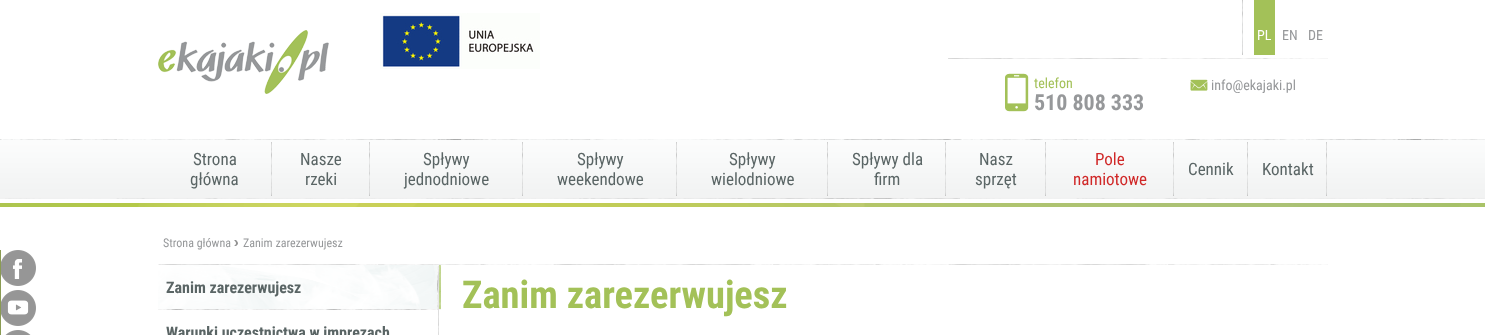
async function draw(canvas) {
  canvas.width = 1485
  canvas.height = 335
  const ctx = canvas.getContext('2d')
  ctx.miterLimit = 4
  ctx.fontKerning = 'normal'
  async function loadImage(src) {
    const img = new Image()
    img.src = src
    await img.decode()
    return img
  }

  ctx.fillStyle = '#fff'
  ctx.fillRect(0, 0, 1485, 335)
  ctx.drawImage(await loadImage('image0.png'), 158, 30, 171, 64)
  ctx.drawImage(await loadImage('image1.png'), 380, 13, 160, 56)
  ctx.drawImage(await loadImage('image2.png'), 1242, 0, 1, 55)
  ctx.fillStyle = '#a3c158'
  ctx.fillRect(1254, 0, 21, 55)
  ctx.font = '14px Roboto Condensed'
  ctx.fillStyle = '#fff'
  ctx.fillText('PL', 1257, 40)
  ctx.fillStyle = '#96989a'
  ctx.fillText('EN', 1282, 40)
  ctx.fillText('DE', 1308, 40)
  ctx.drawImage(await loadImage('image3.png'), 948, 58, 380, 1)
  ctx.drawImage(await loadImage('image4.png'), 1005, 73, 24, 39)
  ctx.fillStyle = '#a3c158'
  ctx.fillText('telefon', 1034, 88)
  ctx.font = 'bold 22px Roboto Condensed'
  ctx.fillStyle = '#96989a'
  ctx.fillText('510 808 333', 1034, 110)
  ctx.drawImage(await loadImage('image5.png'), 1190, 79, 18, 12)
  ctx.font = '14px Roboto Condensed'
  ctx.fillText('info@ekajaki.pl', 1211, 90)
  ctx.drawImage(await loadImage('image6.png'), 0, 139, 1485, 60)
  ctx.drawImage(await loadImage('image7.png'), 271, 142, 1, 54)
  ctx.font = '17px Roboto Condensed'
  ctx.fillStyle = '#5a6565'
  ctx.fillText('Strona', 193, 165)
  ctx.fillText('główna', 190, 185)
  ctx.drawImage(await loadImage('image7.png'), 369, 142, 1, 54)
  ctx.fillText('Nasze', 300, 165)
  ctx.fillText('rzeki', 305, 185)
  ctx.drawImage(await loadImage('image7.png'), 522, 142, 1, 54)
  ctx.fillText('Spływy', 423, 165)
  ctx.fillText('jednodniowe', 404, 185)
  ctx.drawImage(await loadImage('image7.png'), 676, 142, 1, 54)
  ctx.fillText('Spływy', 577, 165)
  ctx.fillText('weekendowe', 557, 185)
  ctx.drawImage(await loadImage('image7.png'), 827, 142, 1, 54)
  ctx.fillText('Spływy', 729, 165)
  ctx.fillText('wielodniowe', 711, 185)
  ctx.drawImage(await loadImage('image7.png'), 945, 142, 1, 54)
  ctx.fillText('Spływy dla', 852, 165)
  ctx.fillText('firm', 874, 185)
  ctx.drawImage(await loadImage('image7.png'), 1045, 142, 1, 54)
  ctx.fillText('Nasz', 979, 165)
  ctx.fillText('sprzęt', 975, 185)
  ctx.drawImage(await loadImage('image7.png'), 1173, 142, 1, 54)
  ctx.fillStyle = '#d02828'
  ctx.fillText('Pole', 1095, 165)
  ctx.fillText('namiotowe', 1073, 185)
  ctx.drawImage(await loadImage('image7.png'), 1247, 142, 1, 54)
  ctx.fillStyle = '#5a6565'
  ctx.fillText('Cennik', 1188, 175)
  ctx.drawImage(await loadImage('image7.png'), 1326, 142, 1, 54)
  ctx.fillText('Kontakt', 1262, 175)
  ctx.drawImage(await loadImage('image8.png'), 1, 250, 35, 36)
  ctx.strokeStyle = '#8a9b53'
  ctx.lineWidth = 2
  ctx.strokeRect(-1, 251, 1, 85)
  ctx.drawImage(await loadImage('image9.png'), 0, 203, 1485, 4)
  ctx.drawImage(await loadImage('image10.png'), 234, 240, 4, 6)
  ctx.font = '12px Roboto Condensed'
  ctx.fillStyle = '#96989a'
  ctx.fillText('Strona główna', 163, 247)
  ctx.fillText('Zanim zarezerwujesz', 243, 247)
  ctx.drawImage(await loadImage('image11.png'), 158, 264, 1170, 1)
  ctx.drawImage(await loadImage('image12.png'), 158, 265, 283, 45)
  ctx.font = 'bold 16px Roboto Condensed'
  ctx.fillStyle = '#5a6565'
  ctx.fillText('Zanim zarezerwujesz', 166, 293)
  ctx.fillText('Warunki uczestnictwa w imprezach', 166, 338)
  ctx.drawImage(await loadImage('image13.png'), 438, 265, 1, 70)
  ctx.font = 'bold 38.5px Roboto Condensed'
  ctx.fillStyle = '#a3c158'
  ctx.fillText('Zanim zarezerwujesz', 462, 308)
  ctx.drawImage(await loadImage('image14.png'), 1, 290, 35, 36)
  ctx.drawImage(await loadImage('image15.png'), 5, 330, 26, 5)
}

draw(document.querySelector('canvas'))
